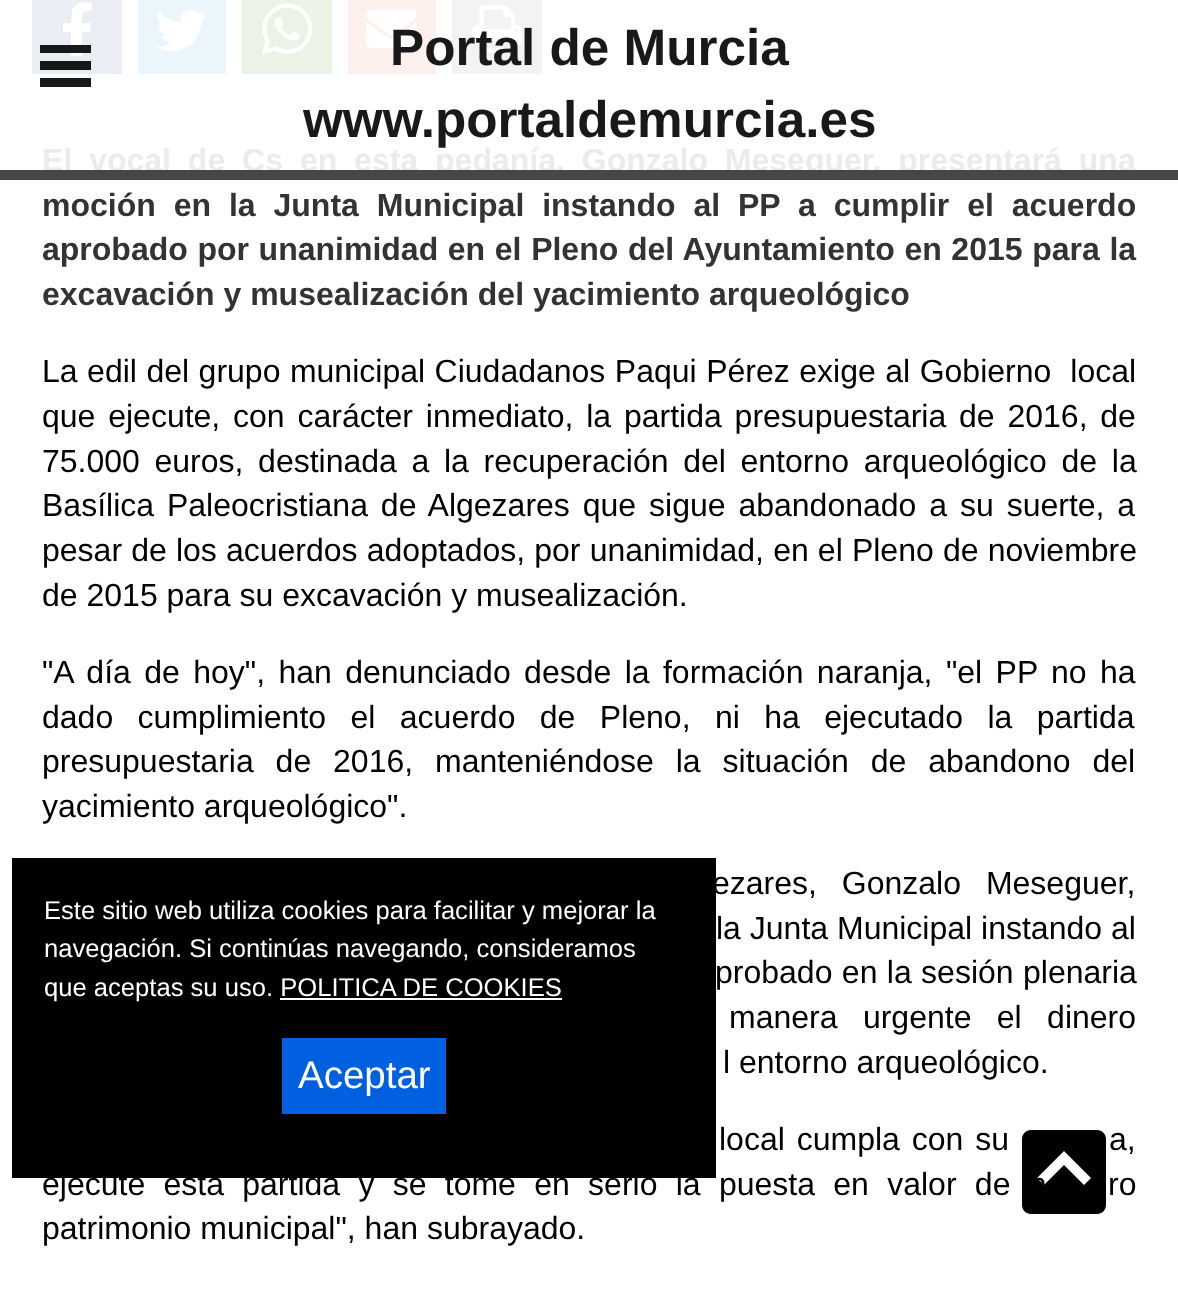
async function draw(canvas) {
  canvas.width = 1178
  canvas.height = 1306
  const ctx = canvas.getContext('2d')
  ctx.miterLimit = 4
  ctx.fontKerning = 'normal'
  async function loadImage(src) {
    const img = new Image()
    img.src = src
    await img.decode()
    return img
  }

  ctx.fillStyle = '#fff'
  ctx.fillRect(0, 0, 1178, 1306)
  ctx.wordSpacing = '8px'
  ctx.font = 'bold 32px Liberation Sans'
  ctx.fillStyle = '#ebebeb'
  ctx.fillText('El vocal de Cs en esta pedanía, Gonzalo Meseguer, presentará una', 42, 171)
  ctx.fillStyle = '#333333e6'
  ctx.fillRect(0, 170, 1178, 10)
  ctx.fillStyle = '#eaeef4'
  ctx.fillRect(32, 0, 90, 74)
  ctx.fillStyle = '#fff'
  ctx.beginPath()
  ctx.moveTo(90, 32)
  ctx.lineTo(91, 23)
  ctx.lineTo(82, 23)
  ctx.bezierCurveTo(82, 13, 81, 11, 92, 11)
  ctx.lineTo(92, 3)
  ctx.bezierCurveTo(83, 1, 73, 2, 72, 12)
  ctx.lineTo(71, 23)
  ctx.lineTo(63, 23)
  ctx.lineTo(63, 32)
  ctx.lineTo(71, 32)
  ctx.lineTo(71, 56)
  ctx.lineTo(82, 56)
  ctx.lineTo(82, 32)
  ctx.closePath()
  ctx.fill()
  ctx.fillStyle = '#000000e6'
  ctx.beginPath()
  ctx.moveTo(91, 53)
  ctx.lineTo(40, 53)
  ctx.lineTo(40, 45)
  ctx.lineTo(91, 45)
  ctx.closePath()
  ctx.moveTo(91, 70)
  ctx.lineTo(40, 70)
  ctx.lineTo(40, 61)
  ctx.lineTo(91, 61)
  ctx.closePath()
  ctx.moveTo(40, 87)
  ctx.lineTo(91, 87)
  ctx.lineTo(91, 78)
  ctx.lineTo(40, 78)
  ctx.closePath()
  ctx.fill('evenodd')
  ctx.fillStyle = '#fef0ed'
  ctx.fillRect(348, 0, 88, 74)
  ctx.drawImage(await loadImage('image2.png'), 366, 9, 50, 39)
  ctx.fillStyle = '#f1f3f4'
  ctx.fillRect(452, 0, 90, 74)
  ctx.drawImage(await loadImage('image3.png'), 472, 5, 50, 48)
  ctx.wordSpacing = '0px'
  ctx.font = 'bold 51.25px Liberation Sans'
  ctx.fillStyle = '#191919'
  ctx.fillText('Portal de Murcia', 390, 65)
  ctx.fillText('www.portaldemurcia.es', 303, 137)
  ctx.fillStyle = '#eaf6fb'
  ctx.fillRect(138, 0, 88, 74)
  ctx.drawImage(await loadImage('image0.png'), 156, 9, 50, 42)
  ctx.fillStyle = '#eaf3e6'
  ctx.fillRect(242, 0, 90, 74)
  ctx.drawImage(await loadImage('image1.png'), 262, 3, 50, 52)
  ctx.wordSpacing = '9px'
  ctx.font = 'bold 32px Liberation Sans'
  ctx.fillStyle = '#333'
  ctx.fillText('moción en la Junta Municipal instando al PP a cumplir el acuerdo', 42, 216)
  ctx.wordSpacing = '0.75px'
  ctx.fillText('aprobado por unanimidad en el Pleno del Ayuntamiento en 2015 para la', 42, 260)
  ctx.wordSpacing = '0px'
  ctx.fillText('excavación y musealización del yacimiento arqueológico', 42, 305)
  ctx.wordSpacing = '0.6px'
  ctx.font = '32px Liberation Sans'
  ctx.fillStyle = '#000'
  ctx.fillText('La edil del grupo municipal Ciudadanos Paqui Pérez exige al Gobierno  local', 42, 382)
  ctx.wordSpacing = '3.9px'
  ctx.fillText('que ejecute, con carácter inmediato, la partida presupuestaria de 2016, de', 42, 427)
  ctx.wordSpacing = '5.75px'
  ctx.fillText('75.000 euros, destinada a la recuperación del entorno arqueológico de la', 42, 472)
  ctx.wordSpacing = '4px'
  ctx.fillText('Basílica Paleocristiana de Algezares que sigue abandonado a su suerte, a', 42, 516)
  ctx.wordSpacing = '0.25px'
  ctx.fillText('pesar de los acuerdos adoptados, por unanimidad, en el Pleno de noviembre', 42, 561)
  ctx.wordSpacing = '0px'
  ctx.fillText('de 2015 para su excavación y musealización.', 42, 606)
  ctx.wordSpacing = '4.5px'
  ctx.fillText('"A día de hoy", han denunciado desde la formación naranja, "el PP no ha', 42, 683)
  ctx.wordSpacing = '15.5px'
  ctx.fillText('dado cumplimiento el acuerdo de Pleno, ni ha ejecutado la partida', 42, 728)
  ctx.wordSpacing = '13px'
  ctx.fillText('presupuestaria de 2016, manteniéndose la situación de abandono del', 42, 772)
  ctx.wordSpacing = '0px'
  ctx.fillText('yacimiento arqueológico".', 42, 817)
  ctx.wordSpacing = '16px'
  ctx.fillText('ezares, Gonzalo Meseguer,', 712, 894)
  ctx.wordSpacing = '0px'
  ctx.fillText('la Junta Municipal instando al', 716, 939)
  ctx.wordSpacing = '0.5px'
  ctx.fillText('probado en la sesión plenaria', 715, 983)
  ctx.wordSpacing = '16.5px'
  ctx.fillText('manera urgente el dinero', 729, 1028)
  ctx.wordSpacing = '0px'
  ctx.fillText('l entorno arqueológico.', 723, 1073)
  ctx.wordSpacing = '3px'
  ctx.fillText('local cumpla con su', 719, 1150)
  ctx.fillText('a,', 1109, 1150)
  ctx.wordSpacing = '9.4px'
  ctx.fillText('ejecute esta partida y se tome en serio la puesta en valor de n', 42, 1195)
  ctx.fillText('ro', 1108, 1195)
  ctx.wordSpacing = '0px'
  ctx.fillText('patrimonio municipal", han subrayado.', 42, 1239)
  ctx.fillRect(12, 858, 704, 320)
  ctx.font = '25.6px Liberation Sans'
  ctx.fillStyle = '#fff'
  ctx.fillText('Este sitio web utiliza cookies para facilitar y mejorar la', 44, 919)
  ctx.fillText('navegación. Si continúas navegando, consideramos', 44, 957)
  ctx.fillText('que aceptas su uso. POLITICA DE COOKIES', 44, 996)
  ctx.fillRect(280, 998, 282, 2)
  ctx.fillStyle = '#0060df'
  ctx.fillRect(282, 1038, 164, 76)
  ctx.font = '38.5px Liberation Sans'
  ctx.fillStyle = '#fff'
  ctx.fillText('Aceptar', 298, 1088)
  ctx.fillStyle = '#000'
  ctx.beginPath()
  ctx.moveTo(1031, 1214)
  ctx.lineTo(1097, 1214)
  ctx.bezierCurveTo(1102, 1214, 1106, 1210, 1106, 1205)
  ctx.lineTo(1106, 1139)
  ctx.bezierCurveTo(1106, 1134, 1102, 1130, 1097, 1130)
  ctx.lineTo(1031, 1130)
  ctx.bezierCurveTo(1026, 1130, 1022, 1134, 1022, 1139)
  ctx.lineTo(1022, 1205)
  ctx.bezierCurveTo(1022, 1210, 1026, 1214, 1031, 1214)
  ctx.closePath()
  ctx.moveTo(1064, 1151)
  ctx.lineTo(1091, 1178)
  ctx.lineTo(1084, 1185)
  ctx.lineTo(1064, 1165)
  ctx.lineTo(1044, 1185)
  ctx.lineTo(1037, 1178)
  ctx.closePath()
  ctx.fill()
}

draw(document.querySelector('canvas'))
